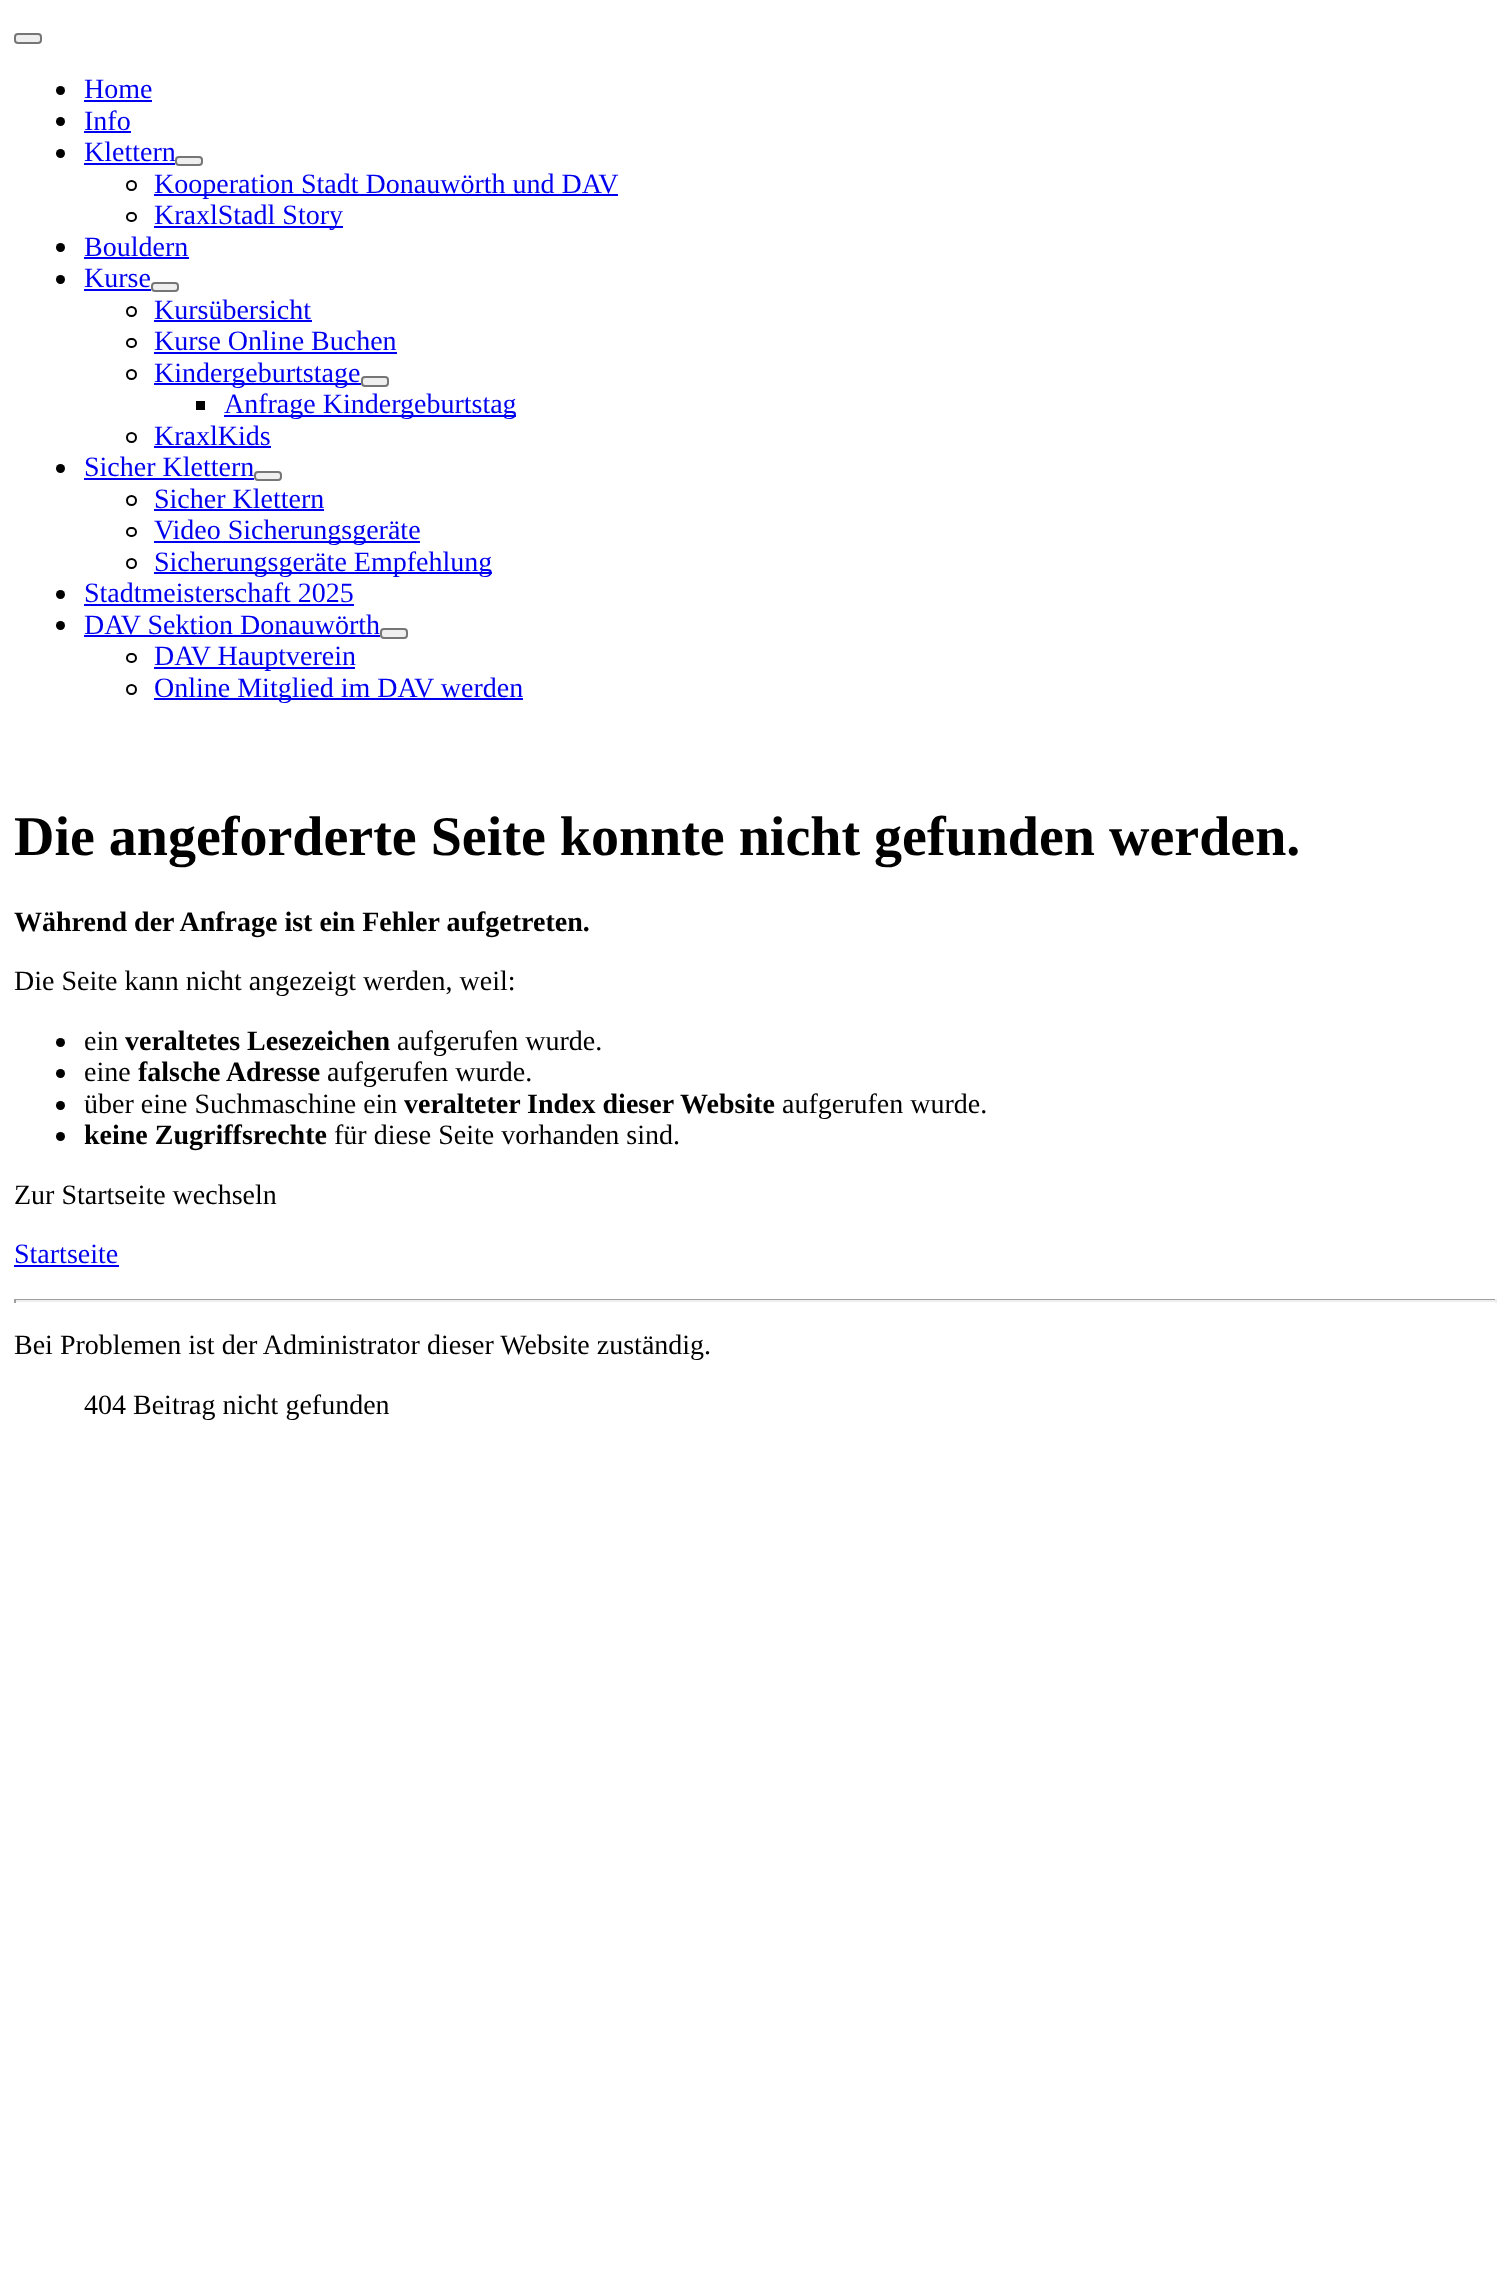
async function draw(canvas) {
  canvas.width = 1509
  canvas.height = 2280
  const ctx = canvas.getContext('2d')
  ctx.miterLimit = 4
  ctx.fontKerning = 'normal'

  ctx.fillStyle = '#fff'
  ctx.fillRect(0, 0, 1509, 2280)
  ctx.fillStyle = '#efefef'
  ctx.beginPath()
  ctx.roundRect(15, 34, 26, 9, 3)
  ctx.fill()
  ctx.strokeStyle = '#767676'
  ctx.lineWidth = 2
  ctx.stroke()
  ctx.fillStyle = '#000'
  ctx.beginPath()
  ctx.arc(60.5, 90.5, 4.5, 0, 2 * Math.PI)
  ctx.fill()
  ctx.font = '28px Liberation Serif'
  ctx.fillStyle = '#00e'
  ctx.fillText('Home', 84, 98)
  ctx.fillRect(84, 100, 68, 2)
  ctx.fillStyle = '#000'
  ctx.beginPath()
  ctx.arc(60.5, 121.5, 4.5, 0, 2 * Math.PI)
  ctx.fill()
  ctx.fillStyle = '#00e'
  ctx.fillText('Info', 84, 130)
  ctx.fillRect(84, 131, 47, 2)
  ctx.fillStyle = '#000'
  ctx.beginPath()
  ctx.arc(60.5, 153.5, 4.5, 0, 2 * Math.PI)
  ctx.fill()
  ctx.fillStyle = '#00e'
  ctx.fillText('Klettern', 84, 161)
  ctx.fillRect(84, 163, 91, 2)
  ctx.fillStyle = '#efefef'
  ctx.beginPath()
  ctx.roundRect(176, 157, 26, 8, 3)
  ctx.fill()
  ctx.stroke()
  ctx.beginPath()
  ctx.arc(131.5, 185.5, 4.5, 0, 2 * Math.PI)
  ctx.strokeStyle = '#000'
  ctx.stroke()
  ctx.fillStyle = '#00e'
  ctx.fillRect(154, 194, 464, 2)
  ctx.fillText('Kooperation Stadt Donauwörth und DAV', 154, 193)
  ctx.beginPath()
  ctx.roundRect(127, 213, 9, 8, 4)
  ctx.stroke()
  ctx.fillRect(154, 226, 189, 2)
  ctx.fillText('KraxlStadl Story', 154, 224)
  ctx.fillStyle = '#000'
  ctx.beginPath()
  ctx.arc(60.5, 247.5, 4.5, 0, 2 * Math.PI)
  ctx.fill()
  ctx.fillStyle = '#00e'
  ctx.fillText('Bouldern', 84, 256)
  ctx.fillRect(84, 257, 105, 2)
  ctx.fillStyle = '#000'
  ctx.beginPath()
  ctx.arc(60.5, 279.5, 4.5, 0, 2 * Math.PI)
  ctx.fill()
  ctx.fillStyle = '#00e'
  ctx.fillText('Kurse', 84, 287)
  ctx.fillRect(84, 289, 67, 2)
  ctx.fillStyle = '#efefef'
  ctx.beginPath()
  ctx.roundRect(152, 283, 26, 8, 3)
  ctx.fill()
  ctx.strokeStyle = '#767676'
  ctx.stroke()
  ctx.beginPath()
  ctx.arc(131.5, 311.5, 4.5, 0, 2 * Math.PI)
  ctx.strokeStyle = '#000'
  ctx.stroke()
  ctx.fillStyle = '#00e'
  ctx.fillText('Kursübersicht', 154, 319)
  ctx.fillRect(154, 320, 158, 2)
  ctx.beginPath()
  ctx.roundRect(127, 339, 9, 8, 4)
  ctx.stroke()
  ctx.fillText('Kurse Online Buchen', 154, 350)
  ctx.fillRect(154, 352, 243, 2)
  ctx.beginPath()
  ctx.arc(131.5, 374.5, 4.5, 0, 2 * Math.PI)
  ctx.stroke()
  ctx.fillRect(154, 383, 207, 2)
  ctx.fillText('Kindergeburtstage', 154, 382)
  ctx.fillStyle = '#efefef'
  ctx.beginPath()
  ctx.roundRect(362, 377, 26, 9, 3)
  ctx.fill()
  ctx.strokeStyle = '#767676'
  ctx.stroke()
  ctx.fillStyle = '#000'
  ctx.fillRect(196, 401, 9, 9)
  ctx.fillStyle = '#00e'
  ctx.fillRect(224, 415, 292, 2)
  ctx.fillText('Anfrage Kindergeburtstag', 224, 413)
  ctx.beginPath()
  ctx.arc(131.5, 437.5, 4.5, 0, 2 * Math.PI)
  ctx.strokeStyle = '#000'
  ctx.stroke()
  ctx.fillText('KraxlKids', 154, 445)
  ctx.fillRect(154, 446, 117, 2)
  ctx.fillStyle = '#000'
  ctx.beginPath()
  ctx.arc(60.5, 468.5, 4.5, 0, 2 * Math.PI)
  ctx.fill()
  ctx.fillStyle = '#00e'
  ctx.fillText('Sicher Klettern', 84, 476)
  ctx.fillRect(84, 478, 170, 2)
  ctx.fillStyle = '#efefef'
  ctx.beginPath()
  ctx.roundRect(255, 472, 26, 8, 3)
  ctx.fill()
  ctx.strokeStyle = '#767676'
  ctx.stroke()
  ctx.beginPath()
  ctx.arc(131.5, 500.5, 4.5, 0, 2 * Math.PI)
  ctx.strokeStyle = '#000'
  ctx.stroke()
  ctx.fillStyle = '#00e'
  ctx.fillText('Sicher Klettern', 154, 508)
  ctx.fillRect(154, 509, 170, 2)
  ctx.beginPath()
  ctx.roundRect(127, 528, 9, 8, 4)
  ctx.stroke()
  ctx.fillRect(154, 541, 266, 2)
  ctx.fillText('Video Sicherungsgeräte', 154, 539)
  ctx.beginPath()
  ctx.arc(131.5, 563.5, 4.5, 0, 2 * Math.PI)
  ctx.stroke()
  ctx.fillRect(154, 572, 338, 2)
  ctx.fillText('Sicherungsgeräte Empfehlung', 154, 571)
  ctx.fillStyle = '#000'
  ctx.beginPath()
  ctx.arc(60.5, 594.5, 4.5, 0, 2 * Math.PI)
  ctx.fill()
  ctx.fillStyle = '#00e'
  ctx.fillText('Stadtmeisterschaft 2025', 84, 602)
  ctx.fillRect(84, 604, 270, 2)
  ctx.fillStyle = '#000'
  ctx.beginPath()
  ctx.arc(60.5, 625.5, 4.5, 0, 2 * Math.PI)
  ctx.fill()
  ctx.fillStyle = '#00e'
  ctx.fillText('DAV Sektion Donauwörth', 84, 634)
  ctx.fillRect(84, 635, 296, 2)
  ctx.fillStyle = '#efefef'
  ctx.beginPath()
  ctx.roundRect(381, 629, 26, 9, 3)
  ctx.fill()
  ctx.strokeStyle = '#767676'
  ctx.stroke()
  ctx.beginPath()
  ctx.roundRect(127, 654, 9, 8, 4)
  ctx.strokeStyle = '#000'
  ctx.stroke()
  ctx.fillStyle = '#00e'
  ctx.fillRect(154, 667, 201, 2)
  ctx.fillText('DAV Hauptverein', 154, 665)
  ctx.beginPath()
  ctx.arc(131.5, 689.5, 4.5, 0, 2 * Math.PI)
  ctx.stroke()
  ctx.fillRect(154, 698, 369, 2)
  ctx.fillText('Online Mitglied im DAV werden', 154, 697)
  ctx.font = 'bold 56px Liberation Serif'
  ctx.fillStyle = '#000'
  ctx.fillText('Die angeforderte Seite konnte nicht gefunden werden.', 14, 855)
  ctx.font = 'bold 28px Liberation Serif'
  ctx.fillText('Während der Anfrage ist ein Fehler aufgetreten.', 14, 931)
  ctx.font = '28px Liberation Serif'
  ctx.fillText('Die Seite kann nicht angezeigt werden, weil:', 14, 990)
  ctx.beginPath()
  ctx.arc(60.5, 1042.5, 4.5, 0, 2 * Math.PI)
  ctx.fill()
  ctx.fillText('ein', 84, 1050)
  ctx.font = 'bold 28px Liberation Serif'
  ctx.fillText('veraltetes Lesezeichen', 125, 1050)
  ctx.font = '28px Liberation Serif'
  ctx.fillText('aufgerufen wurde.', 397, 1050)
  ctx.beginPath()
  ctx.arc(60.5, 1073.5, 4.5, 0, 2 * Math.PI)
  ctx.fill()
  ctx.fillText('eine', 84, 1081)
  ctx.font = 'bold 28px Liberation Serif'
  ctx.fillText('falsche Adresse', 138, 1081)
  ctx.font = '28px Liberation Serif'
  ctx.fillText('aufgerufen wurde.', 327, 1081)
  ctx.beginPath()
  ctx.arc(60.5, 1105.5, 4.5, 0, 2 * Math.PI)
  ctx.fill()
  ctx.fillText('über eine Suchmaschine ein', 84, 1113)
  ctx.font = 'bold 28px Liberation Serif'
  ctx.fillText('veralteter Index dieser Website', 404, 1113)
  ctx.font = '28px Liberation Serif'
  ctx.fillText('aufgerufen wurde.', 782, 1113)
  ctx.beginPath()
  ctx.arc(60.5, 1136.5, 4.5, 0, 2 * Math.PI)
  ctx.fill()
  ctx.font = 'bold 28px Liberation Serif'
  ctx.fillText('keine Zugriffsrechte', 84, 1144)
  ctx.font = '28px Liberation Serif'
  ctx.fillText('für diese Seite vorhanden sind.', 334, 1144)
  ctx.fillText('Zur Startseite wechseln', 14, 1204)
  ctx.fillStyle = '#00e'
  ctx.fillText('Startseite', 14, 1263)
  ctx.fillRect(14, 1265, 105, 2)
  ctx.fillStyle = '#9f9f9f'
  ctx.fillRect(14, 1299, 1482, 1)
  ctx.fillStyle = '#eee'
  ctx.fillRect(1495, 1299, 2, 4)
  ctx.fillRect(14, 1300, 1482, 2)
  ctx.fillStyle = '#9f9f9f'
  ctx.fillRect(14, 1299, 2, 4)
  ctx.fillStyle = '#000'
  ctx.fillText('Bei Problemen ist der Administrator dieser Website zuständig.', 14, 1354)
  ctx.fillText('404 Beitrag nicht gefunden', 84, 1414)
}

draw(document.querySelector('canvas'))
